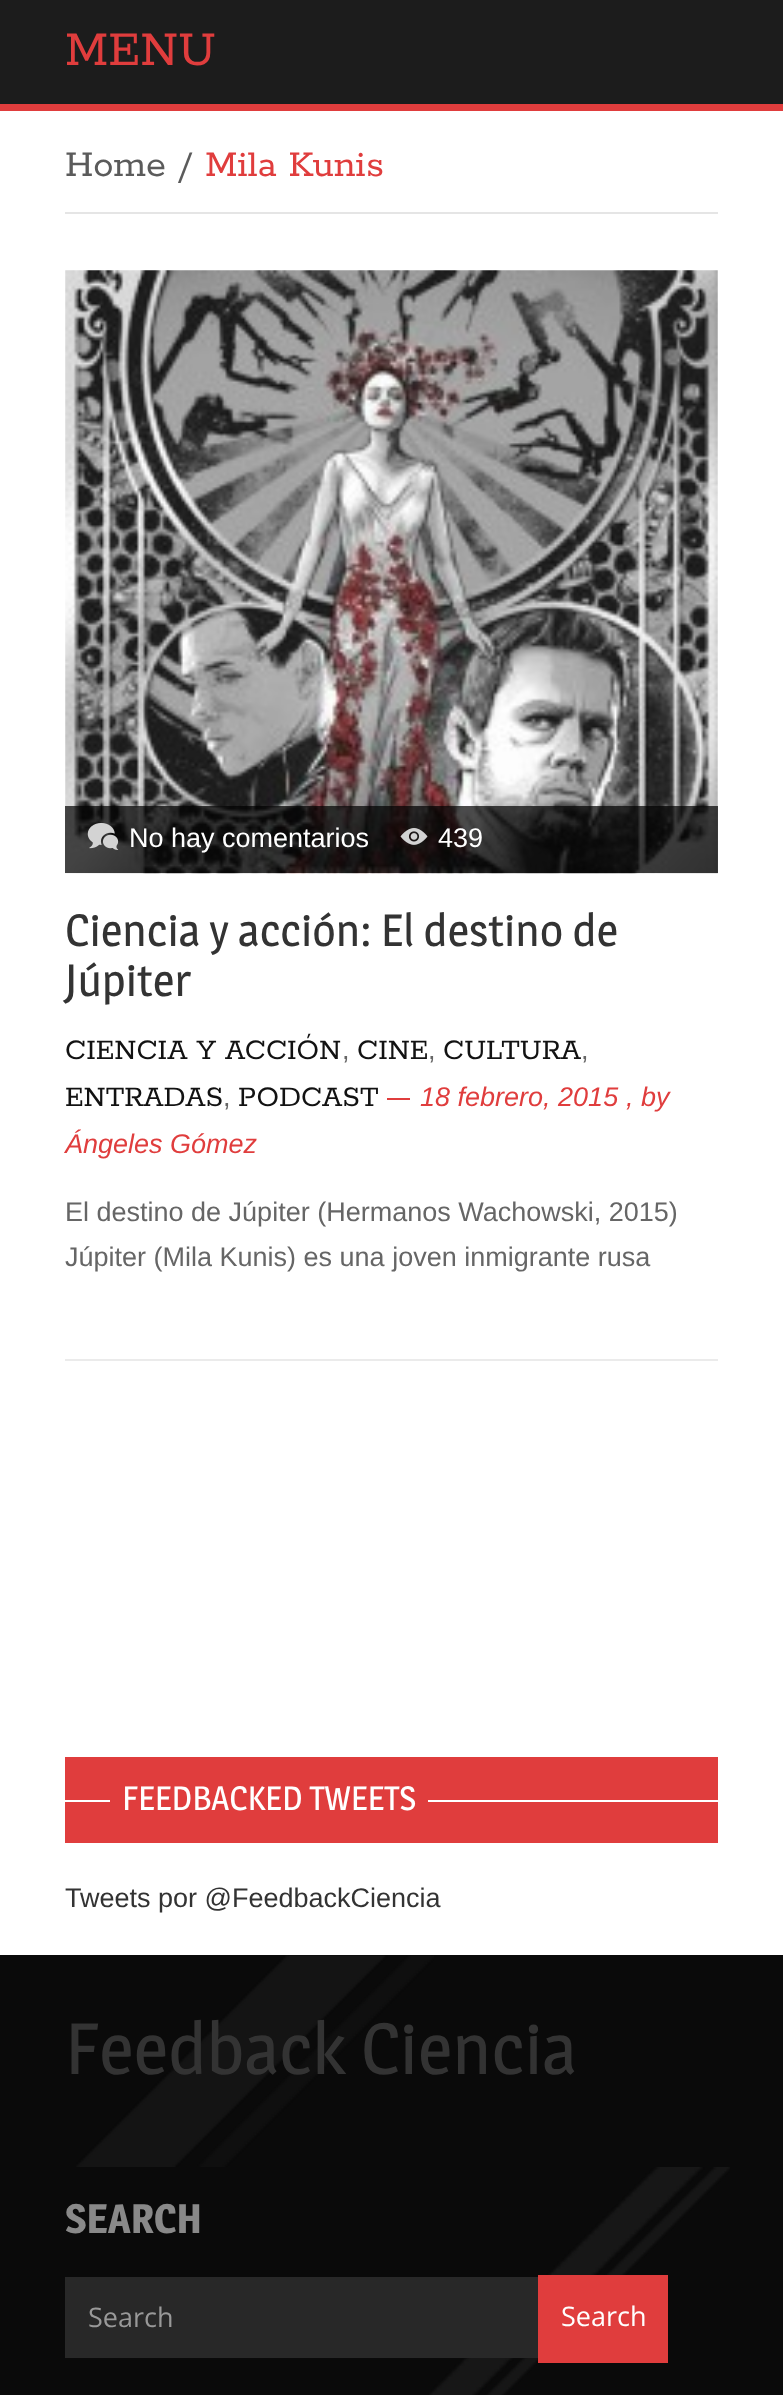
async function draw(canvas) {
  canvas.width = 783
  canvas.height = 2395
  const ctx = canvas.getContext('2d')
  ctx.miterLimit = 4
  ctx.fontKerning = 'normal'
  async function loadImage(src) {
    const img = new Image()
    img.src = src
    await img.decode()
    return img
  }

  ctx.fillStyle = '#fff'
  ctx.fillRect(0, 0, 783, 2395)
  ctx.fillStyle = '#1c1c1c'
  ctx.fillRect(0, 0, 783, 104)
  ctx.fillStyle = '#e03d3d'
  ctx.fillRect(0, 104, 783, 7)
  ctx.font = '54px Rokkitt'
  ctx.fillText('MENU', 65, 65)
  ctx.fillStyle = '#e5e5e5'
  ctx.fillRect(65, 212, 653, 2)
  ctx.font = '40.5px Rokkitt'
  ctx.fillStyle = '#5b5b5b'
  ctx.fillText('Home /', 65, 176)
  ctx.fillStyle = '#e03d3d'
  ctx.fillText('Mila Kunis', 205, 176)
  ctx.fillStyle = '#ebebeb'
  ctx.fillRect(65, 1359, 653, 2)
  ctx.drawImage(await loadImage('image0.png'), 65, 270, 653, 604)
  ctx.fillStyle = '#000000b3'
  ctx.fillRect(65, 806, 653, 67)
  ctx.drawImage(await loadImage('image1.png'), 87, 822, 32, 28)
  ctx.font = '27px Liberation Sans'
  ctx.fillStyle = '#fff'
  ctx.fillText('No hay comentarios', 129, 847)
  ctx.drawImage(await loadImage('image2.png'), 400, 828, 28, 17)
  ctx.fillText('439', 438, 847)
  ctx.font = '45px Magra'
  ctx.fillStyle = '#333'
  ctx.fillText('Ciencia y acción: El destino de', 65, 946)
  ctx.fillText('Júpiter', 65, 996)
  ctx.font = '31.5px Rokkitt'
  ctx.fillStyle = '#121212'
  ctx.fillText('CIENCIA Y ACCIÓN', 65, 1059)
  ctx.font = '27px Liberation Sans'
  ctx.fillStyle = '#666'
  ctx.fillText(',', 342, 1059)
  ctx.font = '31.5px Rokkitt'
  ctx.fillStyle = '#121212'
  ctx.fillText('CINE', 357, 1059)
  ctx.font = '27px Liberation Sans'
  ctx.fillStyle = '#666'
  ctx.fillText(',', 428, 1059)
  ctx.font = '31.5px Rokkitt'
  ctx.fillStyle = '#121212'
  ctx.fillText('CULTURA', 443, 1059)
  ctx.font = '27px Liberation Sans'
  ctx.fillStyle = '#666'
  ctx.fillText(',', 581, 1059)
  ctx.font = '31.5px Rokkitt'
  ctx.fillStyle = '#121212'
  ctx.fillText('ENTRADAS', 65, 1106)
  ctx.font = '27px Liberation Sans'
  ctx.fillStyle = '#666'
  ctx.fillText(',', 223, 1106)
  ctx.font = '31.5px Rokkitt'
  ctx.fillStyle = '#121212'
  ctx.fillText('PODCAST', 238, 1106)
  ctx.fillStyle = '#e03d3d'
  ctx.fillRect(387, 1098, 23, 2)
  ctx.font = 'italic 27px Liberation Sans'
  ctx.fillText('18 febrero, 2015', 420, 1106)
  ctx.fillText(', by', 626, 1106)
  ctx.fillText('Ángeles Gómez', 65, 1153)
  ctx.font = '27px Liberation Sans'
  ctx.fillStyle = '#666'
  ctx.fillText('El destino de Júpiter (Hermanos Wachowski, 2015)', 65, 1221)
  ctx.fillText('Júpiter (Mila Kunis) es una joven inmigrante rusa', 65, 1266)
  ctx.fillStyle = '#e03d3d'
  ctx.fillRect(65, 1757, 653, 86)
  ctx.fillStyle = '#fff'
  ctx.fillRect(65, 1800, 653, 2)
  ctx.fillStyle = '#e03d3d'
  ctx.fillRect(110, 1800, 318, 2)
  ctx.font = '33.75px Magra'
  ctx.fillStyle = '#fff'
  ctx.fillText('FEEDBACKED TWEETS', 122, 1810)
  ctx.font = '27px Liberation Sans'
  ctx.fillStyle = '#333'
  ctx.fillText('Tweets por @FeedbackCiencia', 65, 1907)
  ctx.fillStyle = '#0a0a0a'
  ctx.fillRect(0, 1955, 783, 440)
  ctx.drawImage(await loadImage('image3.png'), 76, 1955, 358, 212)
  ctx.font = '72px Magra'
  ctx.fillStyle = '#333'
  ctx.fillText('Feedback Ciencia', 65, 2074)
  ctx.drawImage(await loadImage('image4.png'), 429, 2167, 301, 228)
  ctx.font = '600 40.5px Magra'
  ctx.fillStyle = '#898989'
  ctx.fillText('SEARCH', 65, 2233)
  ctx.fillStyle = '#282828'
  ctx.fillRect(65, 2277, 473, 81)
  ctx.font = '27px Open Sans'
  ctx.fillStyle = '#999'
  ctx.fillText('Search', 88, 2327)
  ctx.fillStyle = '#e03d3d'
  ctx.fillRect(538, 2275, 130, 88)
  ctx.fillStyle = '#fff'
  ctx.fillText('Search', 561, 2326)
}

draw(document.querySelector('canvas'))
